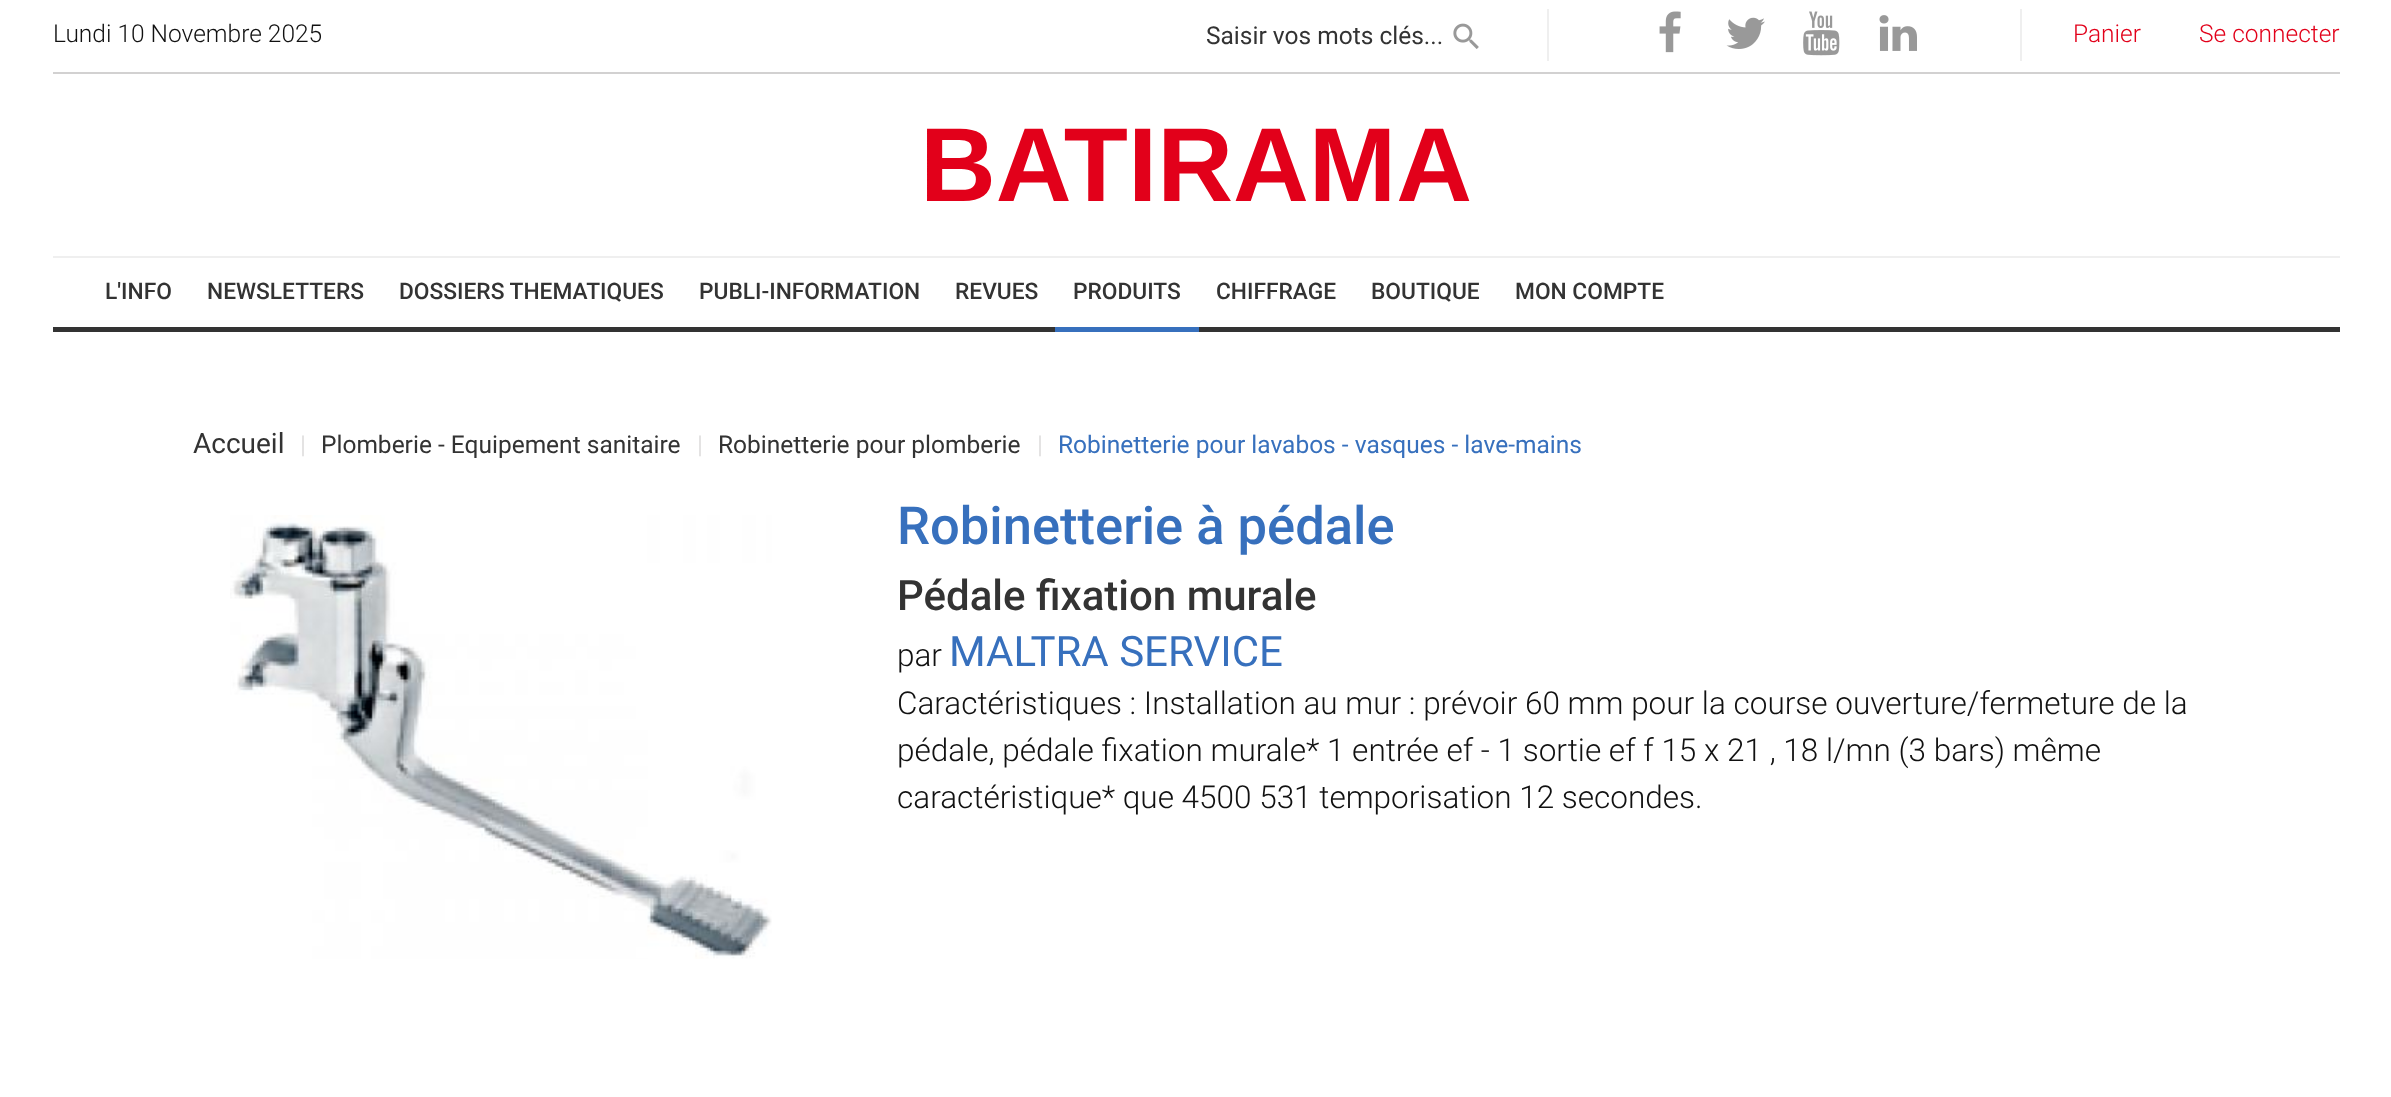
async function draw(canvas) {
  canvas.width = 2391
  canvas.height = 1097
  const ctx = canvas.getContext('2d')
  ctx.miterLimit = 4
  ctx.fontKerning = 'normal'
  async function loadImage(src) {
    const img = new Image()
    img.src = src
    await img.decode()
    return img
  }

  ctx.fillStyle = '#fff'
  ctx.fillRect(0, 0, 2391, 1097)
  ctx.fillStyle = '#d2d1d1'
  ctx.fillRect(53, 72, 2287, 2)
  ctx.font = '300 24.5px Roboto'
  ctx.fillStyle = '#111'
  ctx.fillText('Lundi 10 Novembre 2025', 53, 42)
  ctx.font = '24.5px Roboto'
  ctx.fillStyle = '#333'
  ctx.fillText('Saisir vos mots clés...', 1206, 44)
  ctx.drawImage(await loadImage('image0.png'), 1453, 23, 26, 26)
  ctx.fillStyle = '#efefef'
  ctx.fillRect(1547, 9, 2, 52)
  ctx.drawImage(await loadImage('image1.png'), 1659, 11, 22, 42)
  ctx.drawImage(await loadImage('image2.png'), 1726, 17, 39, 32)
  ctx.drawImage(await loadImage('image3.png'), 1803, 11, 37, 45)
  ctx.drawImage(await loadImage('image4.png'), 1879, 15, 38, 36)
  ctx.fillRect(2020, 9, 2, 52)
  ctx.font = '300 24.5px Roboto'
  ctx.fillStyle = '#e2001a'
  ctx.fillText('Panier', 2073, 42)
  ctx.fillText('Se connecter', 2199, 42)
  ctx.fillStyle = '#efefef'
  ctx.fillRect(53, 256, 2287, 2)
  ctx.font = 'bold 105px Liberation Sans'
  ctx.fillStyle = '#e2001a'
  ctx.fillText('BATIRAMA', 920, 201)
  ctx.fillStyle = '#333'
  ctx.fillRect(53, 327, 2287, 5)
  ctx.font = '500 22.75px Roboto'
  ctx.fillText('L\'INFO', 105, 299)
  ctx.fillText('NEWSLETTERS', 207, 299)
  ctx.fillText('DOSSIERS THEMATIQUES', 399, 299)
  ctx.fillText('PUBLI-INFORMATION', 699, 299)
  ctx.fillText('REVUES', 955, 299)
  ctx.fillText('PRODUITS', 1073, 299)
  ctx.fillStyle = '#3770bd'
  ctx.fillRect(1055, 327, 144, 5)
  ctx.fillStyle = '#333'
  ctx.fillText('CHIFFRAGE', 1216, 299)
  ctx.fillText('BOUTIQUE', 1371, 299)
  ctx.fillText('MON COMPTE', 1515, 299)
  ctx.font = '28px Roboto'
  ctx.fillText('Accueil', 193, 453)
  ctx.font = '24.5px Roboto'
  ctx.fillStyle = '#e2e1e1'
  ctx.fillText('|', 300, 453)
  ctx.fillStyle = '#333'
  ctx.fillText('Plomberie - Equipement sanitaire', 321, 453)
  ctx.fillStyle = '#e2e1e1'
  ctx.fillText('|', 697, 453)
  ctx.fillStyle = '#333'
  ctx.fillText('Robinetterie pour plomberie', 718, 453)
  ctx.fillStyle = '#e2e1e1'
  ctx.fillText('|', 1037, 453)
  ctx.fillStyle = '#3770bd'
  ctx.fillText('Robinetterie pour lavabos - vasques - lave-mains', 1058, 453)
  ctx.drawImage(await loadImage('image5.png'), 230, 515, 542, 444)
  ctx.font = '500 52.5px Roboto'
  ctx.fillText('Robinetterie à pédale', 897, 544)
  ctx.font = '500 42px Roboto'
  ctx.fillStyle = '#333'
  ctx.fillText('Pédale fixation murale', 897, 610)
  ctx.font = '300 31.5px Roboto'
  ctx.fillStyle = '#111'
  ctx.fillText('par', 897, 666)
  ctx.font = '42px Roboto'
  ctx.fillStyle = '#3770bd'
  ctx.fillText('MALTRA SERVICE', 949, 666)
  ctx.font = '300 31.5px Roboto'
  ctx.fillStyle = '#111'
  ctx.fillText('Caractéristiques : Installation au mur : prévoir 60 mm pour la course ouverture/fermeture de la', 897, 714)
  ctx.fillText('pédale, pédale fixation murale* 1 entrée ef - 1 sortie ef f 15 x 21 , 18 l/mn (3 bars) même', 897, 761)
  ctx.fillText('caractéristique* que 4500 531 temporisation 12 secondes.', 897, 808)
}

draw(document.querySelector('canvas'))
